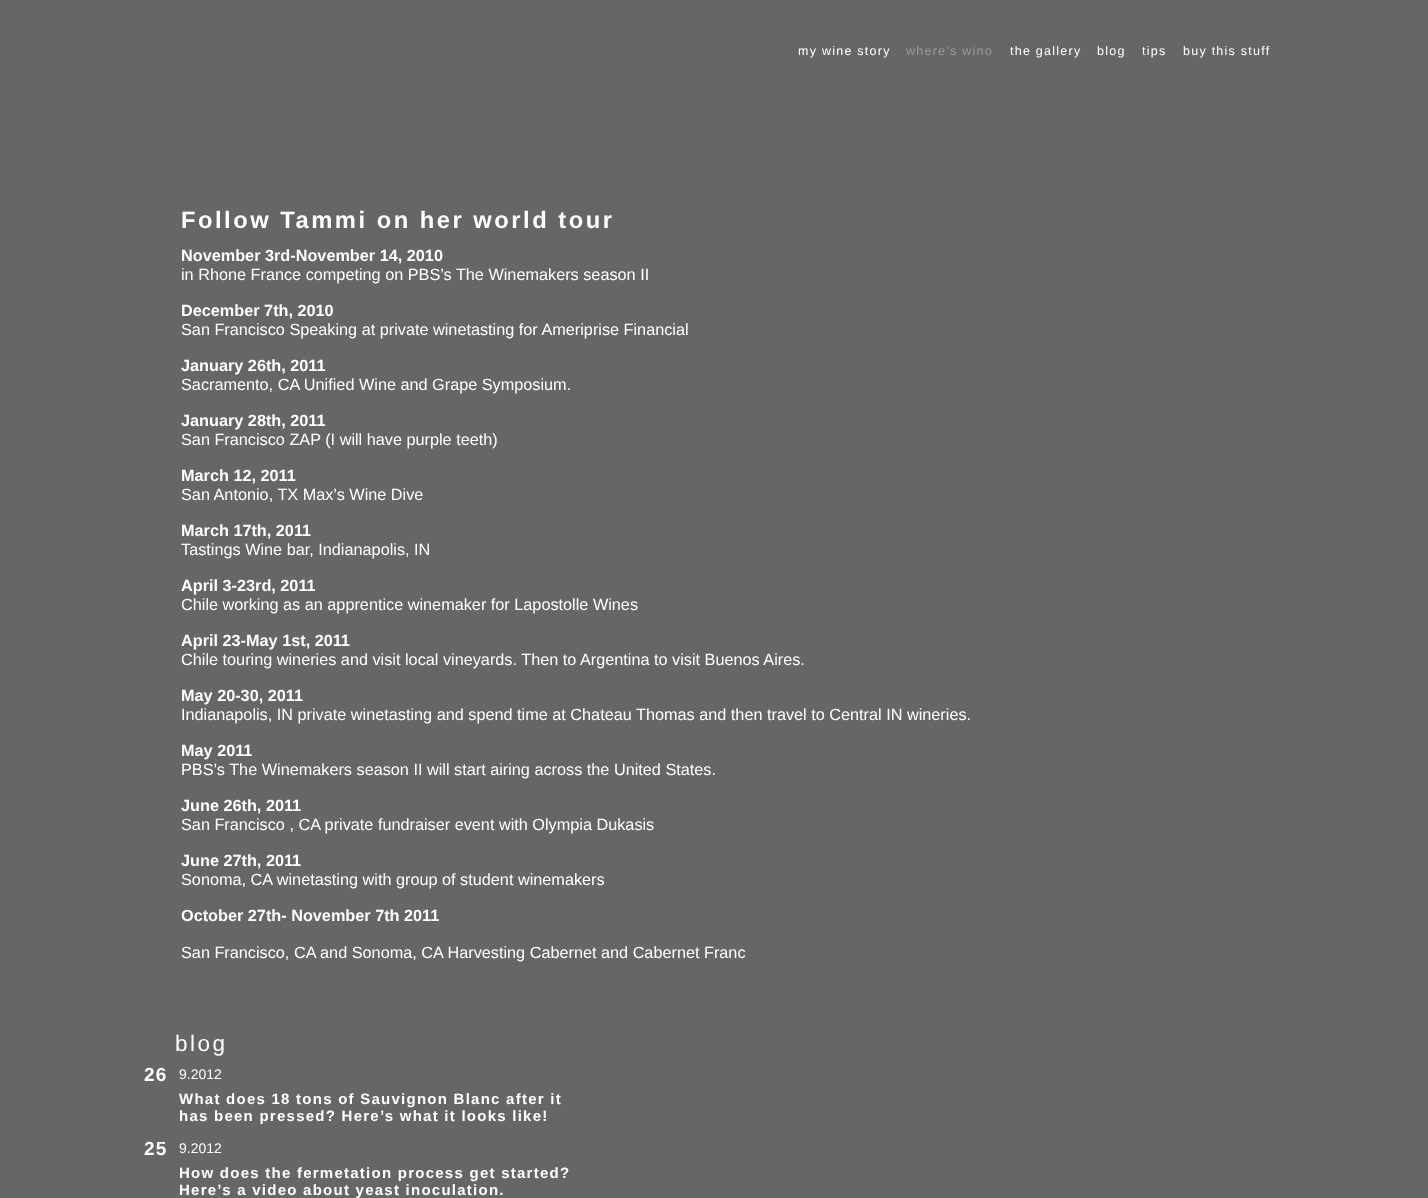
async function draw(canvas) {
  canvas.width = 1428
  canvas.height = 1198
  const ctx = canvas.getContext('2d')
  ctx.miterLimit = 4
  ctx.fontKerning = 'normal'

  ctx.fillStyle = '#666'
  ctx.fillRect(0, 0, 1428, 1198)
  ctx.letterSpacing = '1.25px'
  ctx.font = '12.5px Liberation Sans'
  ctx.fillStyle = '#fff'
  ctx.fillText('my wine story', 798, 55)
  ctx.fillStyle = '#999'
  ctx.fillText('where’s wino', 906, 55)
  ctx.fillStyle = '#fff'
  ctx.fillText('the gallery', 1010, 55)
  ctx.fillText('blog', 1097, 55)
  ctx.fillText('tips', 1142, 55)
  ctx.fillText('buy this stuff', 1183, 55)
  ctx.letterSpacing = '2.5px'
  ctx.font = 'bold 23.75px Liberation Sans'
  ctx.fillText('Follow Tammi on her world tour', 181, 228)
  ctx.letterSpacing = '0px'
  ctx.font = 'bold 16.25px Liberation Sans'
  ctx.fillText('November 3rd-November 14, 2010', 181, 261)
  ctx.font = '16.25px Liberation Sans'
  ctx.fillText('in Rhone France competing on PBS’s The Winemakers season II', 181, 280)
  ctx.font = 'bold 16.25px Liberation Sans'
  ctx.fillText('December 7th, 2010', 181, 316)
  ctx.font = '16.25px Liberation Sans'
  ctx.fillText('San Francisco Speaking at private winetasting for Ameriprise Financial', 181, 335)
  ctx.font = 'bold 16.25px Liberation Sans'
  ctx.fillText('January 26th, 2011', 181, 371)
  ctx.font = '16.25px Liberation Sans'
  ctx.fillText('Sacramento, CA Unified Wine and Grape Symposium.', 181, 390)
  ctx.font = 'bold 16.25px Liberation Sans'
  ctx.fillText('January 28th, 2011', 181, 426)
  ctx.font = '16.25px Liberation Sans'
  ctx.fillText('San Francisco ZAP (I will have purple teeth)', 181, 445)
  ctx.font = 'bold 16.25px Liberation Sans'
  ctx.fillText('March 12, 2011', 181, 481)
  ctx.font = '16.25px Liberation Sans'
  ctx.fillText('San Antonio, TX Max’s Wine Dive', 181, 500)
  ctx.font = 'bold 16.25px Liberation Sans'
  ctx.fillText('March 17th, 2011', 181, 536)
  ctx.font = '16.25px Liberation Sans'
  ctx.fillText('Tastings Wine bar, Indianapolis, IN', 181, 555)
  ctx.font = 'bold 16.25px Liberation Sans'
  ctx.fillText('April 3-23rd, 2011', 181, 591)
  ctx.font = '16.25px Liberation Sans'
  ctx.fillText('Chile working as an apprentice winemaker for Lapostolle Wines', 181, 610)
  ctx.font = 'bold 16.25px Liberation Sans'
  ctx.fillText('April 23-May 1st, 2011', 181, 646)
  ctx.font = '16.25px Liberation Sans'
  ctx.fillText('Chile touring wineries and visit local vineyards. Then to Argentina to visit Buenos Aires.', 181, 665)
  ctx.font = 'bold 16.25px Liberation Sans'
  ctx.fillText('May 20-30, 2011', 181, 701)
  ctx.font = '16.25px Liberation Sans'
  ctx.fillText('Indianapolis, IN private winetasting and spend time at Chateau Thomas and then travel to Central IN wineries.', 181, 720)
  ctx.font = 'bold 16.25px Liberation Sans'
  ctx.fillText('May 2011', 181, 756)
  ctx.font = '16.25px Liberation Sans'
  ctx.fillText('PBS’s The Winemakers season II will start airing across the United States.', 181, 775)
  ctx.font = 'bold 16.25px Liberation Sans'
  ctx.fillText('June 26th, 2011', 181, 811)
  ctx.font = '16.25px Liberation Sans'
  ctx.fillText('San Francisco , CA private fundraiser event with Olympia Dukasis', 181, 830)
  ctx.font = 'bold 16.25px Liberation Sans'
  ctx.fillText('June 27th, 2011', 181, 866)
  ctx.font = '16.25px Liberation Sans'
  ctx.fillText('Sonoma, CA winetasting with group of student winemakers', 181, 885)
  ctx.font = 'bold 16.25px Liberation Sans'
  ctx.fillText('October 27th- November 7th 2011', 181, 921)
  ctx.font = '16.25px Liberation Sans'
  ctx.fillText('San Francisco, CA and Sonoma, CA Harvesting Cabernet and Cabernet Franc', 181, 958)
  ctx.letterSpacing = '2.5px'
  ctx.font = '22.5px Liberation Sans'
  ctx.fillText('blog', 175, 1051)
  ctx.letterSpacing = '1.25px'
  ctx.font = 'bold 19px Liberation Sans'
  ctx.fillText('26', 144, 1081)
  ctx.letterSpacing = '0px'
  ctx.font = '14px Liberation Sans'
  ctx.fillText('9.2012', 179, 1079)
  ctx.letterSpacing = '1.25px'
  ctx.font = 'bold 15px Liberation Sans'
  ctx.fillText('What does 18 tons of Sauvignon Blanc after it', 179, 1104)
  ctx.fillText('has been pressed? Here’s what it looks like!', 179, 1121)
  ctx.font = 'bold 19px Liberation Sans'
  ctx.fillText('25', 144, 1155)
  ctx.letterSpacing = '0px'
  ctx.font = '14px Liberation Sans'
  ctx.fillText('9.2012', 179, 1153)
  ctx.letterSpacing = '1.25px'
  ctx.font = 'bold 15px Liberation Sans'
  ctx.fillText('How does the fermetation process get started?', 179, 1178)
  ctx.fillText('Here’s a video about yeast inoculation.', 179, 1195)
}

draw(document.querySelector('canvas'))
